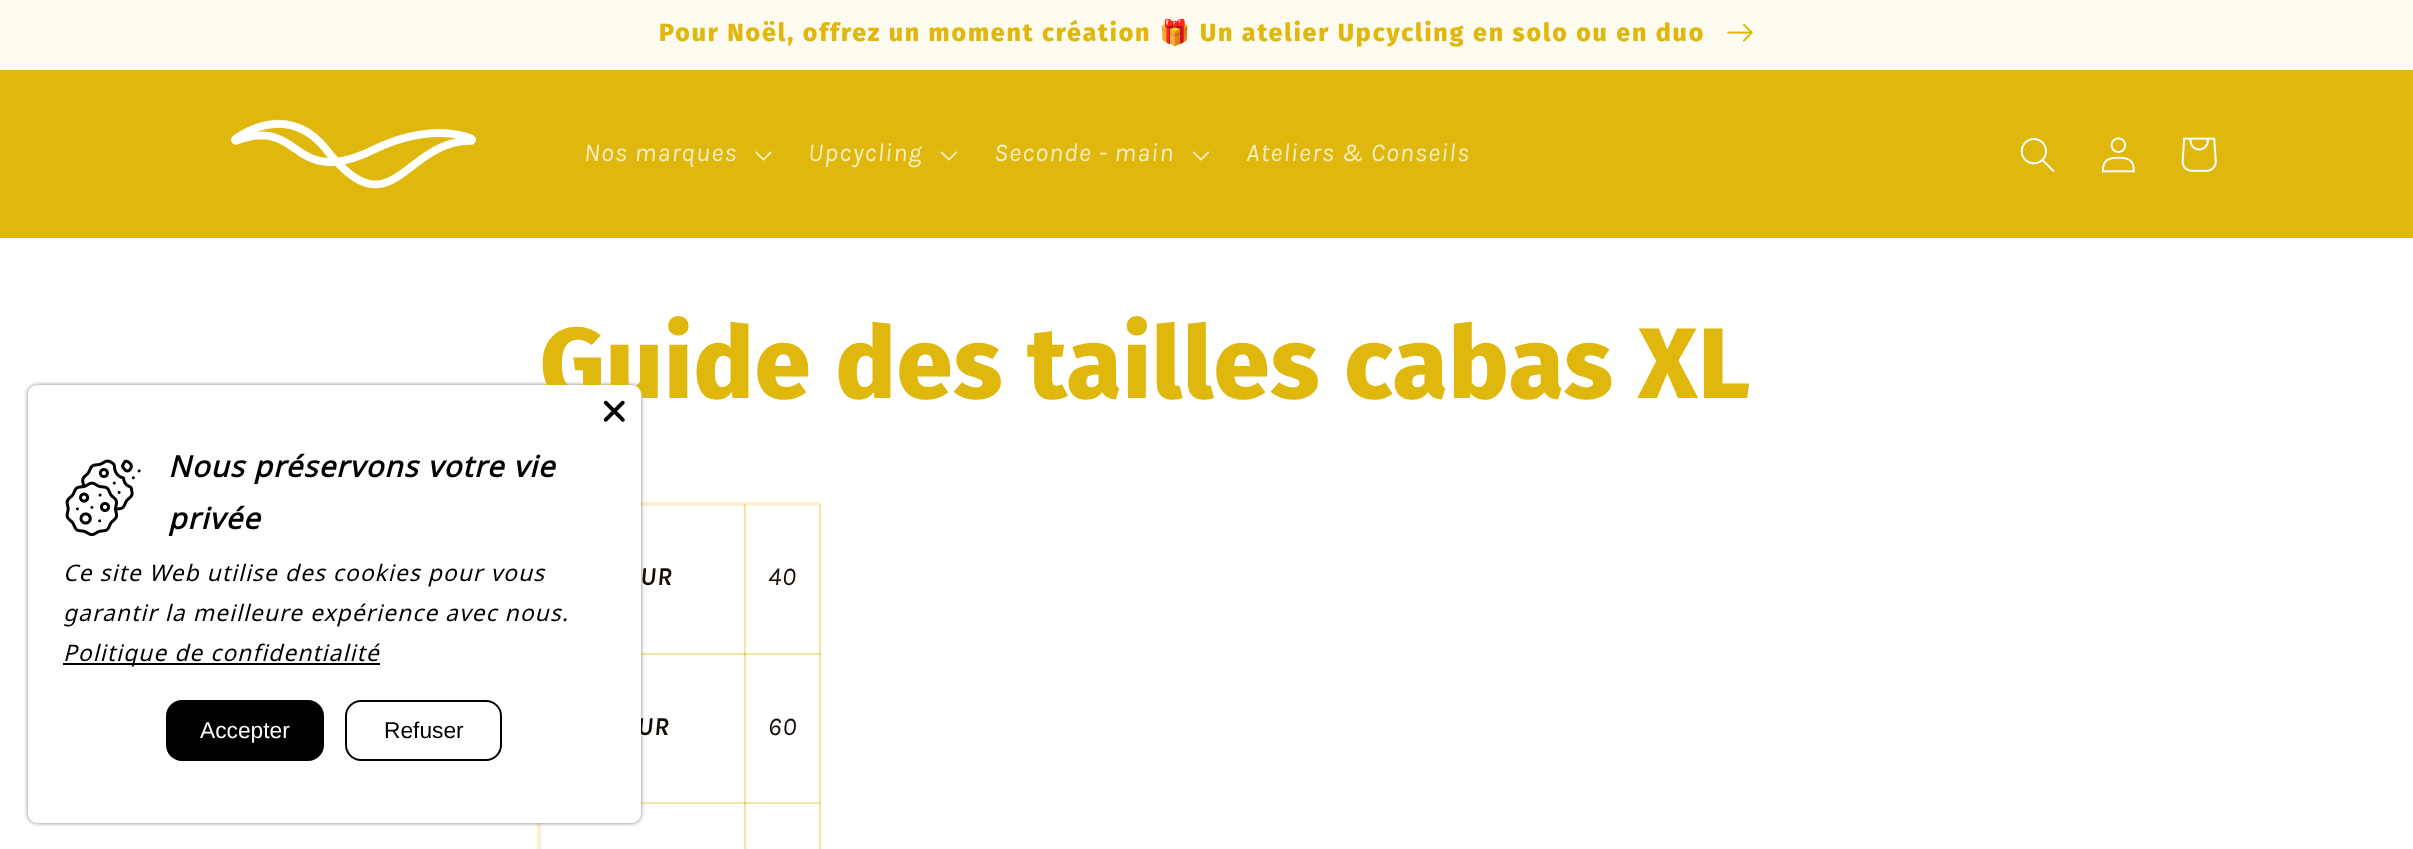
async function draw(canvas) {
  canvas.width = 2413
  canvas.height = 849
  const ctx = canvas.getContext('2d')
  ctx.miterLimit = 4
  ctx.fontKerning = 'normal'
  async function loadImage(src) {
    const img = new Image()
    img.src = src
    await img.decode()
    return img
  }

  ctx.fillStyle = '#fff'
  ctx.fillRect(0, 0, 2413, 849)
  ctx.fillStyle = '#fdf9ec'
  ctx.fillRect(0, 68, 2413, 2)
  ctx.fillStyle = '#fefbf1'
  ctx.fillRect(0, 0, 2413, 68)
  ctx.letterSpacing = '1.85px'
  ctx.font = '800 25px Fira Sans'
  ctx.fillStyle = '#e0b70d'
  ctx.fillText('Pour Noël, offrez un moment création', 659, 41)
  ctx.font = 'bold 25px Noto Color Emoji'
  ctx.fillText('🎁', 1159, 41)
  ctx.font = '800 25px Fira Sans'
  ctx.fillText('Un atelier Upcycling en solo ou en duo', 1200, 41)
  ctx.drawImage(await loadImage('image0.png'), 1727, 23, 26, 19)
  ctx.fillRect(0, 70, 2413, 168)
  ctx.drawImage(await loadImage('image1.png'), 230, 119, 247, 70)
  ctx.letterSpacing = '1.1px'
  ctx.font = 'italic 25.75px Karla'
  ctx.fillStyle = '#f7edc3'
  ctx.fillText('Nos marques', 584, 161)
  ctx.drawImage(await loadImage('image2.png'), 755, 151, 17, 10)
  ctx.fillText('Upcycling', 808, 161)
  ctx.drawImage(await loadImage('image3.png'), 940, 151, 17, 10)
  ctx.fillText('Seconde - main', 994, 161)
  ctx.drawImage(await loadImage('image3.png'), 1192, 151, 17, 10)
  ctx.fillText('Ateliers & Conseils', 1246, 161)
  ctx.drawImage(await loadImage('image4.png'), 2020, 138, 35, 34)
  ctx.drawImage(await loadImage('image5.png'), 2101, 137, 34, 36)
  ctx.drawImage(await loadImage('image6.png'), 2181, 137, 36, 35)
  ctx.strokeStyle = '#f9f1cf'
  ctx.lineWidth = 2
  ctx.strokeRect(538, 503, 282, 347)
  ctx.fillStyle = '#e0b70d33'
  ctx.fillRect(744, 504, 77, 2)
  ctx.fillRect(744, 653, 77, 2)
  ctx.fillRect(744, 802, 77, 2)
  ctx.fillRect(819, 802, 2, 47)
  ctx.fillRect(819, 653, 2, 150)
  ctx.fillRect(819, 504, 2, 151)
  ctx.fillRect(744, 802, 2, 47)
  ctx.fillRect(641, 802, 105, 2)
  ctx.fillRect(744, 802, 2, 47)
  ctx.fillRect(744, 802, 77, 2)
  ctx.fillRect(744, 653, 2, 150)
  ctx.fillRect(641, 653, 105, 2)
  ctx.fillRect(744, 653, 2, 150)
  ctx.fillRect(744, 653, 77, 2)
  ctx.fillRect(744, 504, 2, 151)
  ctx.fillRect(641, 504, 105, 2)
  ctx.fillRect(744, 504, 2, 151)
  ctx.fillRect(641, 653, 105, 2)
  ctx.fillRect(641, 802, 105, 2)
  ctx.fillRect(539, 823, 2, 26)
  ctx.fillStyle = '#00000080'
  ctx.filter = 'blur(2px)'
  ctx.beginPath()
  ctx.roundRect(28, 385, 613, 438, 9)
  ctx.fill()
  ctx.filter = 'none'
  ctx.letterSpacing = '1.15px'
  ctx.font = '800 100.1px Fira Sans'
  ctx.fillStyle = '#e0b70d'
  ctx.fillText('Guide des tailles cabas XL', 540, 398)
  ctx.letterSpacing = '1.1px'
  ctx.font = 'italic bold 25.75px Karla'
  ctx.fillStyle = '#160d08'
  ctx.fillText('UR', 637, 735)
  ctx.fillStyle = '#fff'
  ctx.beginPath()
  ctx.roundRect(28, 385, 613, 438, 9)
  ctx.fill()
  ctx.drawImage(await loadImage('image7.png'), 603, 400, 22, 22)
  ctx.font = 'italic bold 29.4px Noto Sans'
  ctx.fillStyle = '#000'
  ctx.fillText('Nous préservons votre vie', 168, 477)
  ctx.fillText('privée', 168, 529)
  ctx.font = 'italic 22.75px Noto Sans'
  ctx.fillText('Ce site Web utilise des cookies pour vous', 63, 581)
  ctx.fillText('garantir la meilleure expérience avec nous.', 63, 621)
  ctx.fillRect(63, 663, 317, 2)
  ctx.fillText('Politique de confidentialité', 63, 661)
  ctx.drawImage(await loadImage('image8.png'), 65, 459, 76, 78)
  ctx.beginPath()
  ctx.roundRect(166, 700, 158, 61, 16)
  ctx.fill()
  ctx.letterSpacing = '0px'
  ctx.font = '22.75px Liberation Sans'
  ctx.fillStyle = '#f8f8f8'
  ctx.fillText('Accepter', 200, 738)
  ctx.beginPath()
  ctx.roundRect(346, 701, 155, 59, 15)
  ctx.strokeStyle = '#000'
  ctx.stroke()
  ctx.fillStyle = '#000'
  ctx.fillText('Refuser', 384, 738)
  ctx.letterSpacing = '1.1px'
  ctx.font = 'italic bold 25.75px Karla'
  ctx.fillStyle = '#160d08'
  ctx.fillText('UR', 640, 585)
  ctx.font = 'italic 25.75px Karla'
  ctx.fillText('40', 768, 585)
  ctx.fillText('60', 768, 735)
}

draw(document.querySelector('canvas'))
